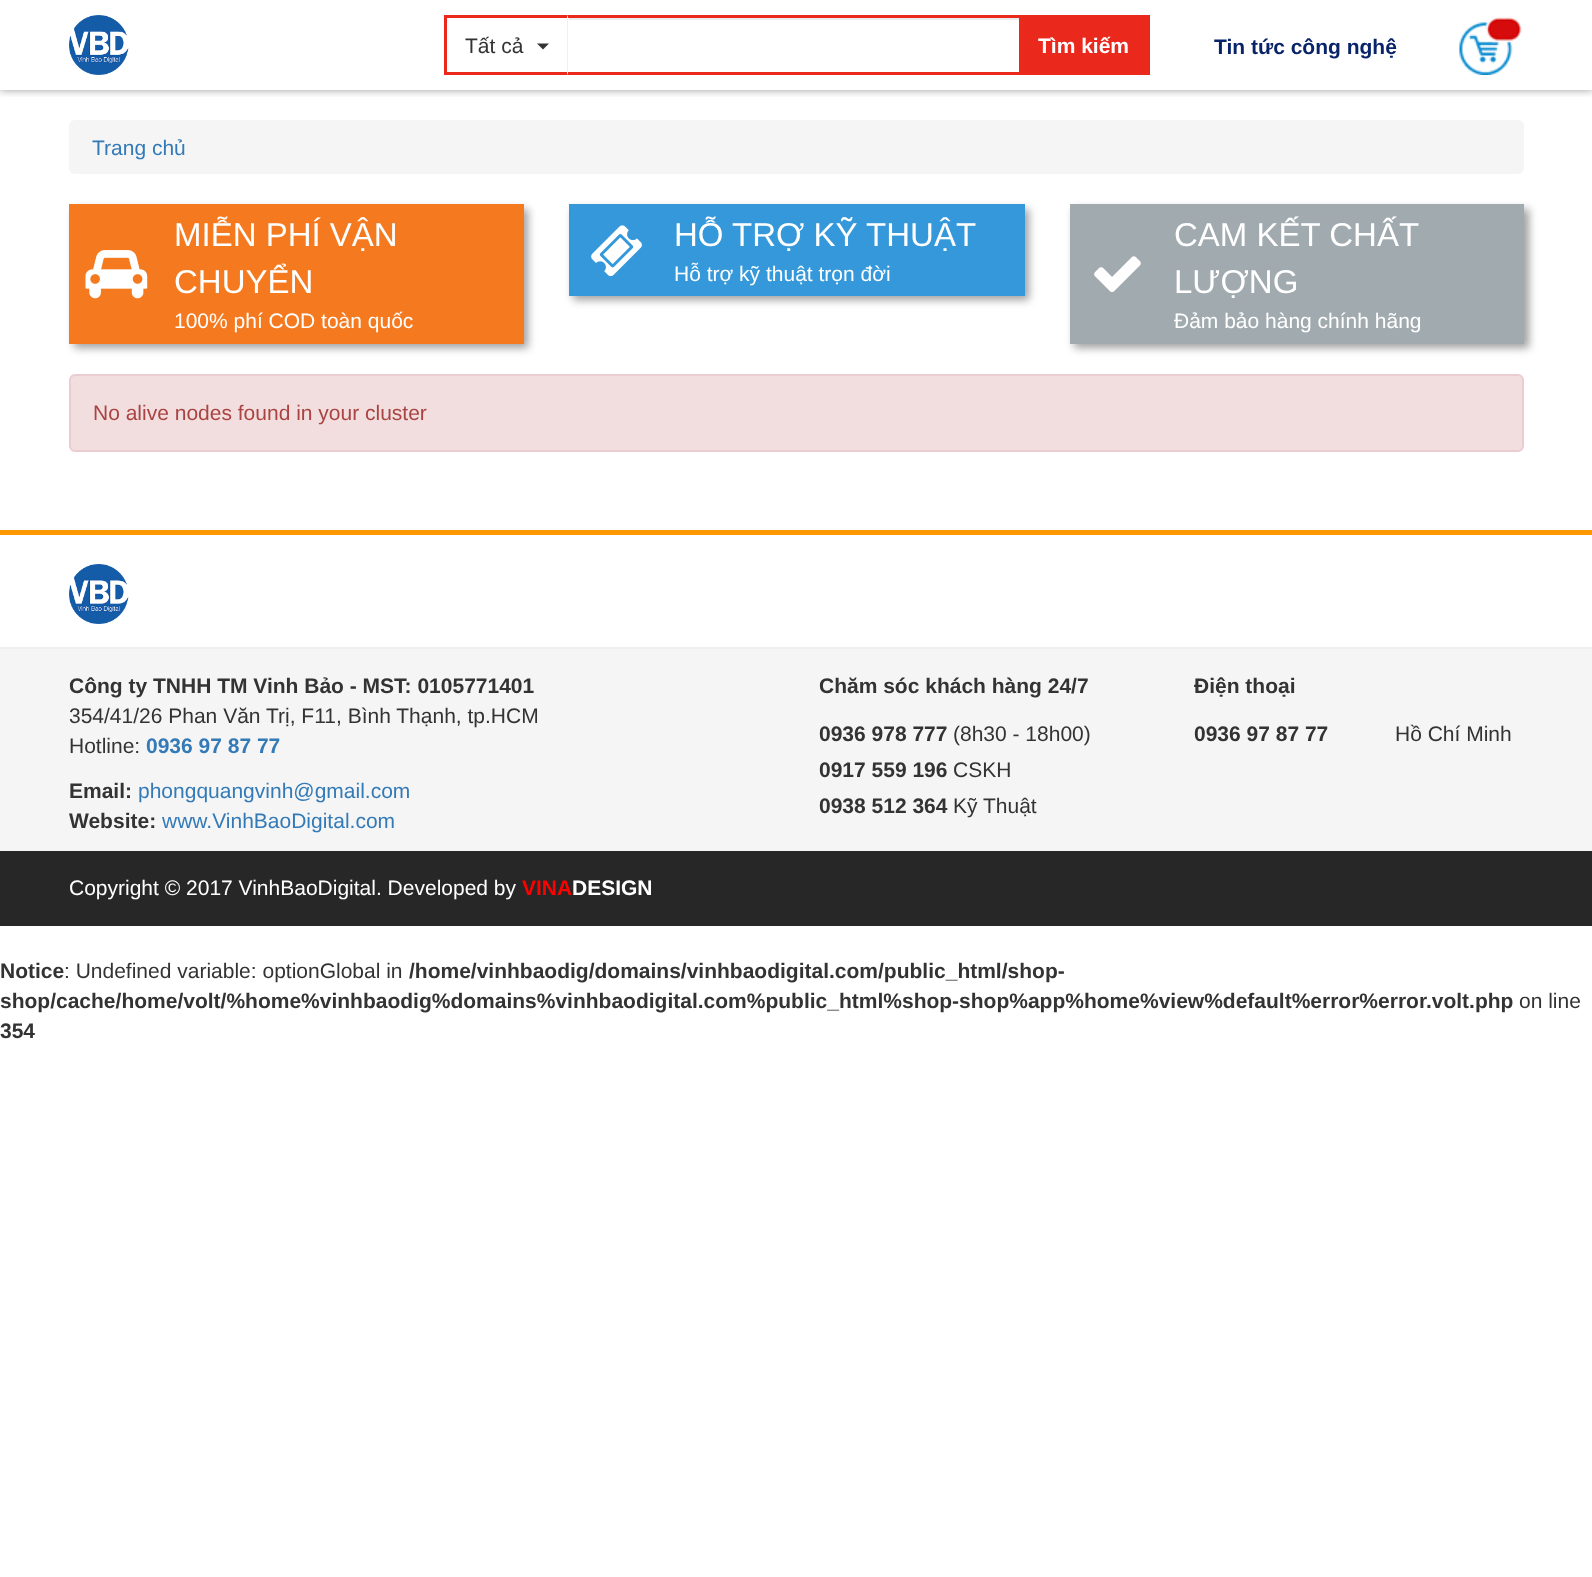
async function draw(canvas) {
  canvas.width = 1592
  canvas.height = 1577
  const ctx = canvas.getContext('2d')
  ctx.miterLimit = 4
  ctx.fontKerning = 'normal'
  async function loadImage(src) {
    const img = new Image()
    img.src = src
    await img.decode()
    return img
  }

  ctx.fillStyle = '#fff'
  ctx.fillRect(0, 0, 1592, 1577)
  ctx.save()
  ctx.beginPath()
  ctx.rect(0, 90, 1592, 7)
  ctx.clip()
  ctx.fillStyle = '#00000066'
  ctx.filter = 'blur(4px)'
  ctx.beginPath()
  ctx.rect(0, 0, 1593, 90)
  ctx.fill()
  ctx.filter = 'none'
  ctx.restore()
  ctx.drawImage(await loadImage('image0.png'), 69, 15, 60, 60)
  ctx.fillStyle = '#ea281c'
  ctx.fillRect(444, 15, 123, 3)
  ctx.fillRect(444, 72, 123, 3)
  ctx.fillRect(444, 15, 3, 60)
  ctx.font = '21px Liberation Sans'
  ctx.fillStyle = '#333'
  ctx.fillText('Tất cả', 465, 53)
  ctx.beginPath()
  ctx.moveTo(537, 43.5)
  ctx.lineTo(549, 43.5)
  ctx.lineTo(543, 49.5)
  ctx.closePath()
  ctx.fill()
  ctx.fillStyle = '#ececec'
  ctx.fillRect(569, 18, 451, 2)
  ctx.fillStyle = '#ea281c'
  ctx.beginPath()
  ctx.moveTo(567, 15)
  ctx.lineTo(1020, 15)
  ctx.lineTo(1020, 18)
  ctx.lineTo(568, 18)
  ctx.closePath()
  ctx.fill()
  ctx.beginPath()
  ctx.moveTo(1020, 75)
  ctx.lineTo(567, 75)
  ctx.lineTo(568, 72)
  ctx.lineTo(1020, 72)
  ctx.closePath()
  ctx.fill()
  ctx.fillStyle = '#f0f0f0'
  ctx.beginPath()
  ctx.moveTo(567, 75)
  ctx.lineTo(567, 15)
  ctx.lineTo(568, 18)
  ctx.lineTo(568, 72)
  ctx.closePath()
  ctx.fill()
  ctx.fillStyle = '#ea281c'
  ctx.fillRect(1021, 18, 127, 54)
  ctx.fillRect(1019, 15, 130, 3)
  ctx.fillRect(1148, 15, 2, 60)
  ctx.fillRect(1019, 72, 130, 3)
  ctx.fillRect(1019, 15, 2, 60)
  ctx.font = 'bold 21px Liberation Sans'
  ctx.fillStyle = '#fff'
  ctx.fillText('Tìm kiếm', 1038, 53)
  ctx.fillStyle = '#0a246a'
  ctx.fillText('Tin tức công nghệ', 1214, 54)
  ctx.drawImage(await loadImage('image1.png'), 1459, 17, 63, 58)
  ctx.fillStyle = '#f5f5f5'
  ctx.beginPath()
  ctx.roundRect(69, 120, 1455, 54, 6)
  ctx.fill()
  ctx.font = '21px Liberation Sans'
  ctx.fillStyle = '#337ab7'
  ctx.fillText('Trang chủ', 92, 155)
  ctx.fillStyle = '#a0a0a0'
  ctx.filter = 'blur(4px)'
  ctx.beginPath()
  ctx.rect(74, 209, 454, 139)
  ctx.fill()
  ctx.filter = 'none'
  ctx.fillStyle = '#f5791f'
  ctx.fillRect(69, 204, 455, 140)
  ctx.drawImage(await loadImage('image2.png'), 85, 250, 63, 49)
  ctx.font = '33px Liberation Sans'
  ctx.fillStyle = '#fff'
  ctx.fillText('MIỄN PHÍ VẬN', 174, 246)
  ctx.fillText('CHUYỂN', 174, 293)
  ctx.font = '21px Liberation Sans'
  ctx.fillText('100% phí COD toàn quốc', 174, 328)
  ctx.fillStyle = '#a0a0a0'
  ctx.filter = 'blur(4px)'
  ctx.beginPath()
  ctx.rect(573, 209, 456, 91)
  ctx.fill()
  ctx.filter = 'none'
  ctx.fillStyle = '#3498db'
  ctx.fillRect(569, 204, 456, 92)
  ctx.drawImage(await loadImage('image3.png'), 591, 225, 51, 52)
  ctx.font = '33px Liberation Sans'
  ctx.fillStyle = '#fff'
  ctx.fillText('HỖ TRỢ KỸ THUẬT', 674, 246)
  ctx.font = '21px Liberation Sans'
  ctx.fillText('Hỗ trợ kỹ thuật trọn đời', 674, 281)
  ctx.fillStyle = '#a0a0a0'
  ctx.filter = 'blur(4px)'
  ctx.beginPath()
  ctx.rect(1074, 209, 455, 139)
  ctx.fill()
  ctx.filter = 'none'
  ctx.fillStyle = '#a1aaaf'
  ctx.fillRect(1070, 204, 454, 140)
  ctx.drawImage(await loadImage('image4.png'), 1094, 256, 47, 36)
  ctx.font = '33px Liberation Sans'
  ctx.fillStyle = '#fff'
  ctx.fillText('CAM KẾT CHẤT', 1174, 246)
  ctx.fillText('LƯỢNG', 1174, 293)
  ctx.font = '21px Liberation Sans'
  ctx.fillText('Đảm bảo hàng chính hãng', 1174, 328)
  ctx.fillStyle = '#f2dede'
  ctx.beginPath()
  ctx.roundRect(70, 375, 1453, 76, 5)
  ctx.fill()
  ctx.strokeStyle = '#ebccd1'
  ctx.lineWidth = 2
  ctx.stroke()
  ctx.fillStyle = '#a94442'
  ctx.fillText('No alive nodes found in your cluster', 93, 420)
  ctx.fillStyle = '#ff9800'
  ctx.fillRect(0, 530, 1592, 5)
  ctx.drawImage(await loadImage('image5.png'), 69, 564, 60, 60)
  ctx.fillStyle = '#f5f5f5'
  ctx.fillRect(0, 649, 1592, 202)
  ctx.fillStyle = '#efefef'
  ctx.fillRect(0, 647, 1592, 2)
  ctx.font = 'bold 21px Liberation Sans'
  ctx.fillStyle = '#333'
  ctx.fillText('Công ty TNHH TM Vinh Bảo - MST: 0105771401', 69, 693)
  ctx.font = '21px Liberation Sans'
  ctx.fillText('354/41/26 Phan Văn Trị, F11, Bình Thạnh, tp.HCM', 69, 723)
  ctx.fillText('Hotline:', 69, 753)
  ctx.font = 'bold 21px Liberation Sans'
  ctx.fillStyle = '#337ab7'
  ctx.fillText('0936 97 87 77', 146, 753)
  ctx.fillStyle = '#333'
  ctx.fillText('Email:', 69, 798)
  ctx.font = '21px Liberation Sans'
  ctx.fillStyle = '#337ab7'
  ctx.fillText('phongquangvinh@gmail.com', 138, 798)
  ctx.font = 'bold 21px Liberation Sans'
  ctx.fillStyle = '#333'
  ctx.fillText('Website:', 69, 828)
  ctx.font = '21px Liberation Sans'
  ctx.fillStyle = '#337ab7'
  ctx.fillText('www.VinhBaoDigital.com', 162, 828)
  ctx.font = 'bold 21px Liberation Sans'
  ctx.fillStyle = '#333'
  ctx.fillText('Chăm sóc khách hàng 24/7', 819, 693)
  ctx.fillText('0936 978 777', 819, 741)
  ctx.font = '21px Liberation Sans'
  ctx.fillText('(8h30 - 18h00)', 953, 741)
  ctx.font = 'bold 21px Liberation Sans'
  ctx.fillText('0917 559 196', 819, 777)
  ctx.font = '21px Liberation Sans'
  ctx.fillText('CSKH', 953, 777)
  ctx.font = 'bold 21px Liberation Sans'
  ctx.fillText('0938 512 364', 819, 813)
  ctx.font = '21px Liberation Sans'
  ctx.fillText('Kỹ Thuật', 953, 813)
  ctx.font = 'bold 21px Liberation Sans'
  ctx.fillText('Điện thoại', 1194, 693)
  ctx.fillText('0936 97 87 77', 1194, 741)
  ctx.font = '21px Liberation Sans'
  ctx.fillText('Hồ Chí Minh', 1395, 741)
  ctx.fillStyle = '#272727'
  ctx.fillRect(0, 851, 1592, 75)
  ctx.fillStyle = '#fff'
  ctx.fillText('Copyright © 2017 VinhBaoDigital. Developed by', 69, 895)
  ctx.font = 'bold 21px Liberation Sans'
  ctx.fillStyle = '#f00'
  ctx.fillText('VINA', 522, 895)
  ctx.fillStyle = '#fff'
  ctx.fillText('DESIGN', 572, 895)
  ctx.fillStyle = '#333'
  ctx.fillText('Notice', 0, 978)
  ctx.font = '21px Liberation Sans'
  ctx.fillText(': Undefined variable: optionGlobal in', 64, 978)
  ctx.font = 'bold 21px Liberation Sans'
  ctx.fillText('/home/vinhbaodig/domains/vinhbaodigital.com/public_html/shop-', 409, 978)
  ctx.fillText('shop/cache/home/volt/%home%vinhbaodig%domains%vinhbaodigital.com%public_html%shop-shop%app%home%view%default%error%error.volt.php', 0, 1008)
  ctx.font = '21px Liberation Sans'
  ctx.fillText('on line', 1519, 1008)
  ctx.font = 'bold 21px Liberation Sans'
  ctx.fillText('354', 0, 1038)
}

draw(document.querySelector('canvas'))
